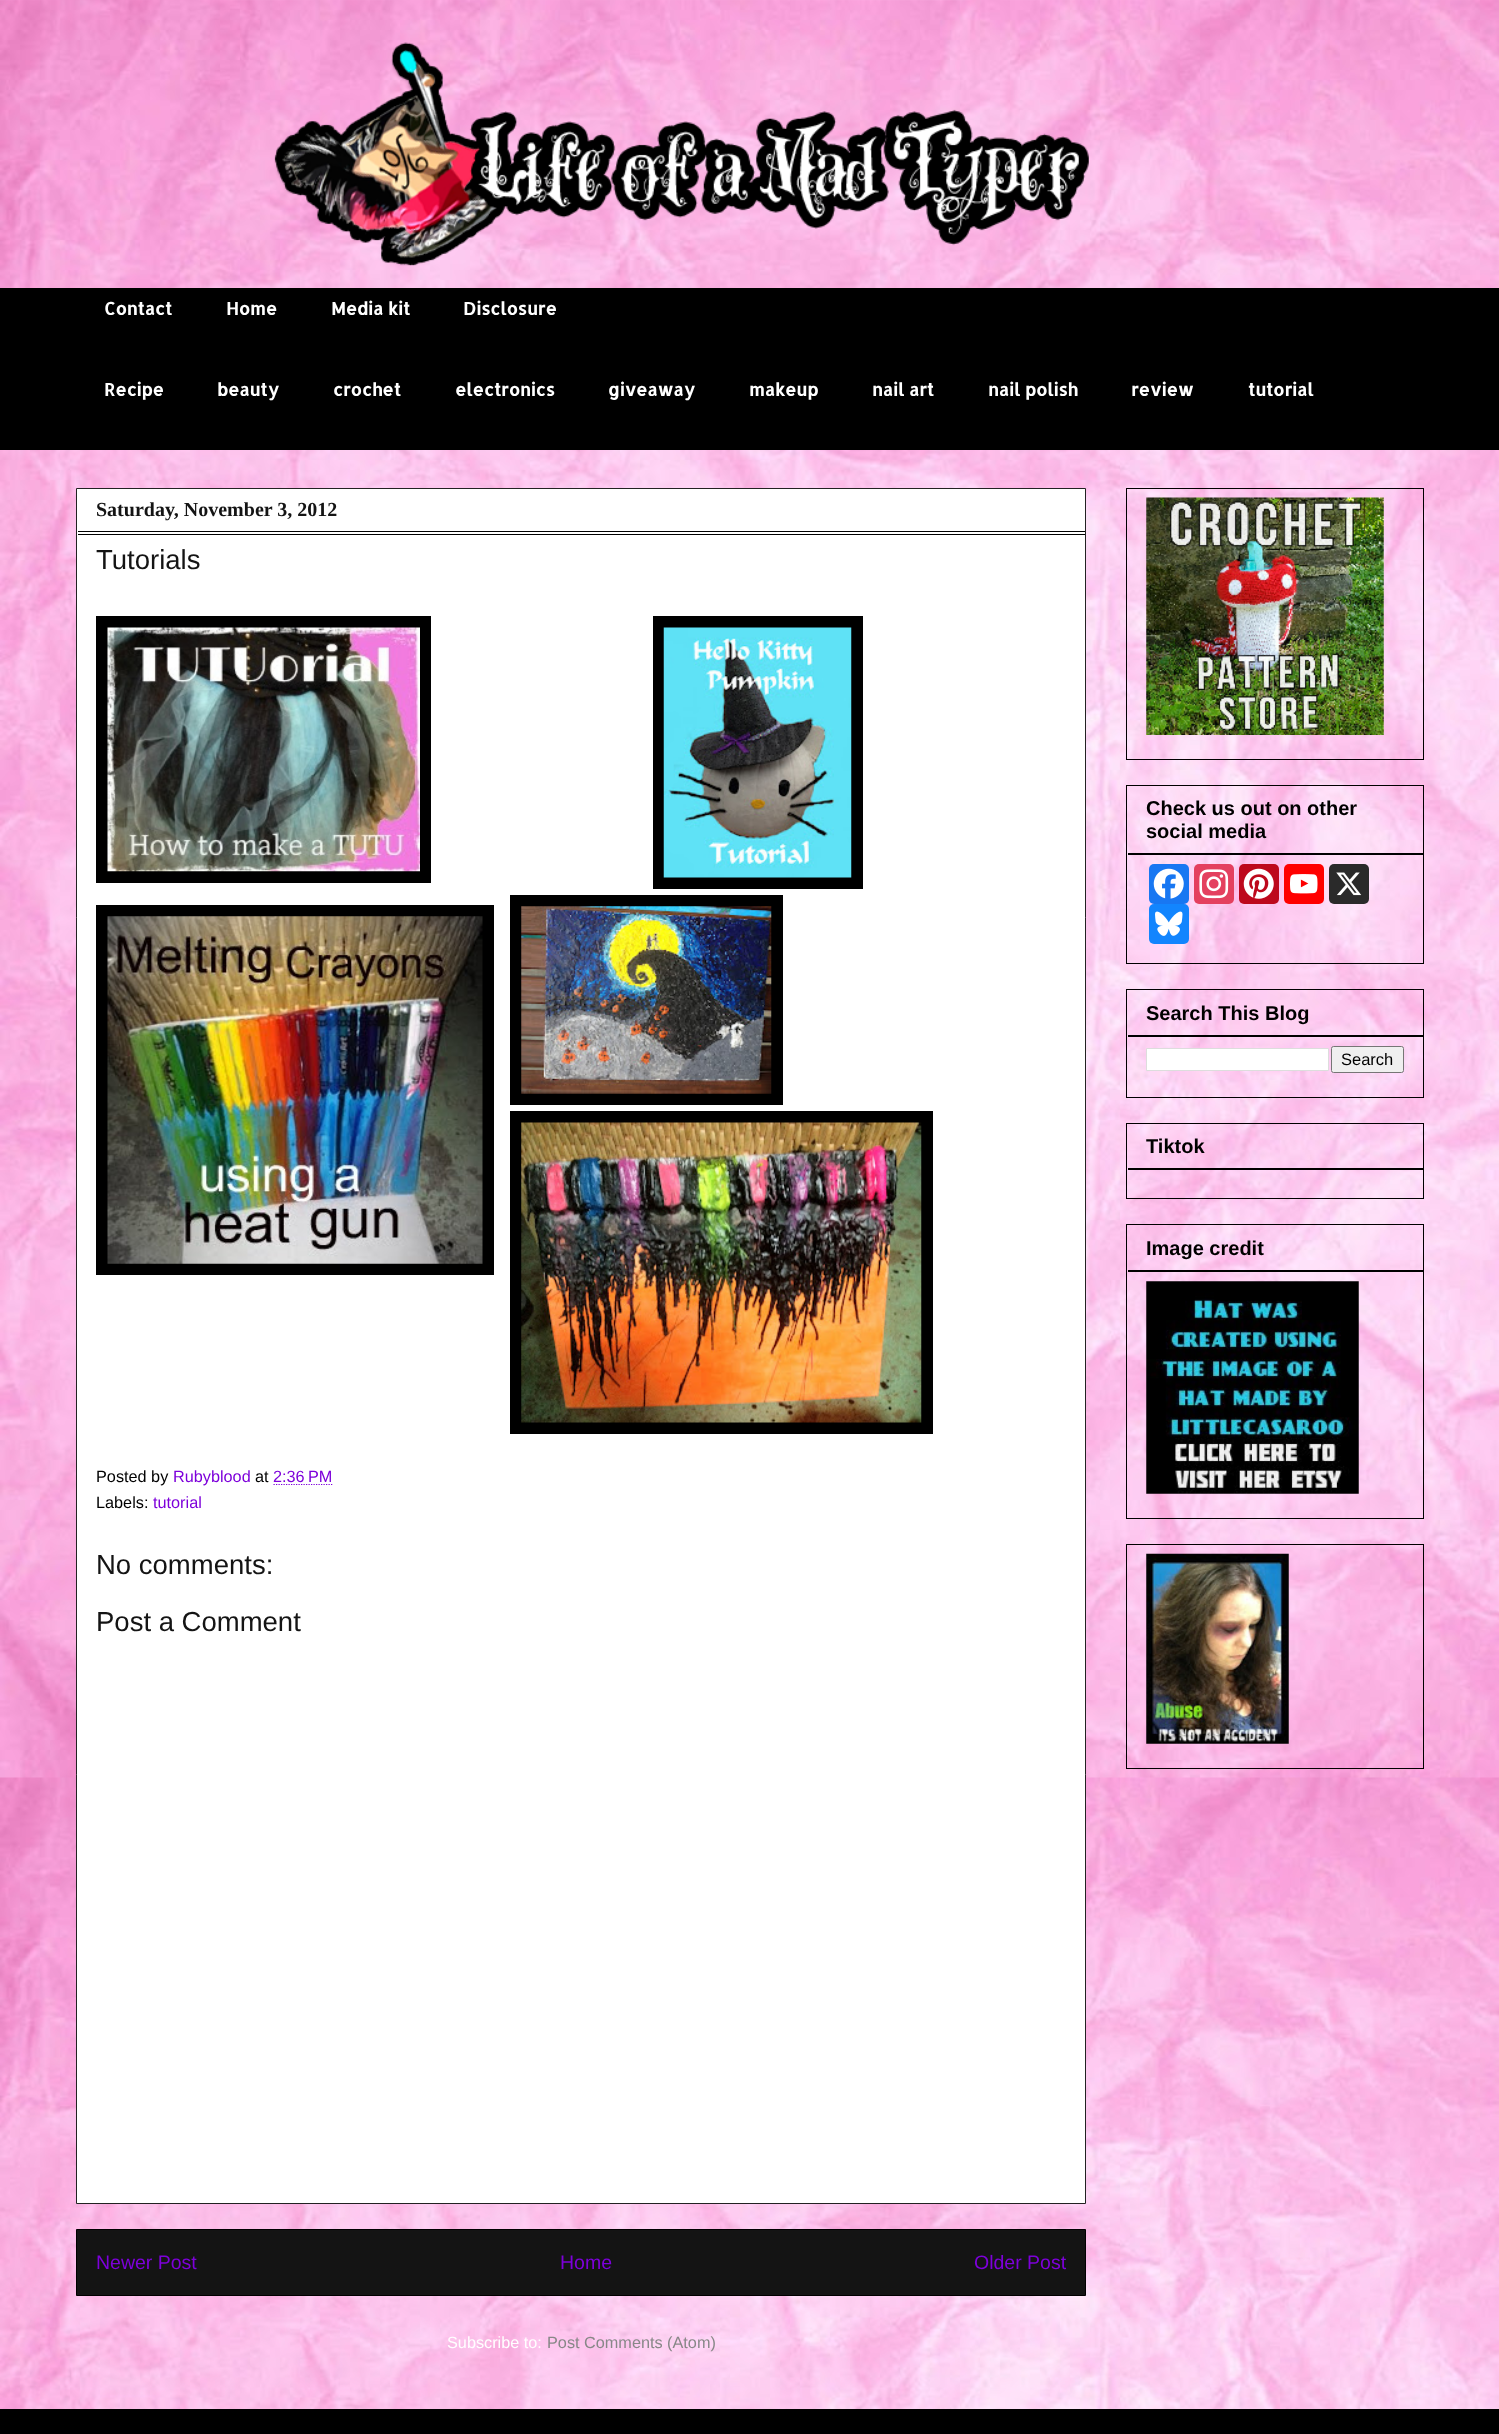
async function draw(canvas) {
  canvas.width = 1499
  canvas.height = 2434
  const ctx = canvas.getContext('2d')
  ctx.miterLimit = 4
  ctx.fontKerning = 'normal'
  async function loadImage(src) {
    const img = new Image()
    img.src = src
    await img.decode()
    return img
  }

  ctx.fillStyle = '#fff'
  ctx.fillRect(0, 0, 1499, 2434)
  ctx.drawImage(await loadImage('image0.png'), 0, 0, 1499, 2409)
  ctx.drawImage(await loadImage('image1.png'), 274, 42, 815, 224)
  ctx.fillStyle = '#000'
  ctx.fillRect(0, 288, 1499, 162)
  ctx.font = 'bold 17.5px Allerta'
  ctx.fillStyle = '#fff'
  ctx.fillText('Contact', 104, 315)
  ctx.fillText('Home', 226, 315)
  ctx.fillText('Media kit', 331, 315)
  ctx.fillText('Disclosure', 463, 315)
  ctx.fillText('Recipe', 104, 396)
  ctx.fillText('beauty', 217, 396)
  ctx.fillText('crochet', 333, 396)
  ctx.fillText('electronics', 455, 396)
  ctx.fillText('giveaway', 608, 396)
  ctx.fillText('makeup', 749, 396)
  ctx.fillText('nail art', 872, 396)
  ctx.fillText('nail polish', 988, 396)
  ctx.fillText('review', 1131, 396)
  ctx.fillText('tutorial', 1248, 396)
  ctx.beginPath()
  ctx.rect(76.5, 488.5, 1009, 1715)
  ctx.fill()
  ctx.strokeStyle = '#222'
  ctx.stroke()
  ctx.fillStyle = '#000'
  ctx.fillRect(78, 531, 1007, 1)
  ctx.font = 'bold 20px Liberation Serif'
  ctx.fillStyle = '#141414'
  ctx.fillText('Saturday, November 3, 2012', 96, 516)
  ctx.fillStyle = '#000'
  ctx.fillRect(78, 534, 1007, 1)
  ctx.font = '27.5px Liberation Sans'
  ctx.fillStyle = '#141414'
  ctx.fillText('Tutorials', 96, 569)
  ctx.fillStyle = '#000'
  ctx.fillRect(96, 616, 335, 267)
  ctx.drawImage(await loadImage('image2.png'), 107, 627, 313, 245)
  ctx.fillRect(653, 616, 210, 273)
  ctx.drawImage(await loadImage('image3.png'), 663, 627, 189, 251)
  ctx.fillRect(96, 905, 398, 370)
  ctx.drawImage(await loadImage('image4.png'), 107, 916, 376, 348)
  ctx.fillRect(510, 895, 273, 210)
  ctx.drawImage(await loadImage('image5.png'), 521, 906, 251, 188)
  ctx.fillRect(510, 1111, 423, 323)
  ctx.drawImage(await loadImage('image6.png'), 521, 1122, 401, 301)
  ctx.font = '16.25px Liberation Sans'
  ctx.fillText('Posted by', 96, 1482)
  ctx.fillStyle = '#7d00da'
  ctx.fillText('Rubyblood', 173, 1482)
  ctx.fillStyle = '#000'
  ctx.fillText('at', 255, 1482)
  ctx.fillStyle = '#7d00da'
  ctx.fillText('2:36 PM', 273, 1482)
  ctx.beginPath()
  ctx.moveTo(273.5, 1484.5)
  ctx.lineTo(332.5, 1484.5)
  ctx.strokeStyle = '#7d00da'
  ctx.lineWidth = 1.2
  ctx.setLineDash([1.25, 1.25])
  ctx.stroke()
  ctx.fillStyle = '#000'
  ctx.fillText('Labels:', 96, 1508)
  ctx.fillStyle = '#7d00da'
  ctx.fillText('tutorial', 153, 1508)
  ctx.font = '27.5px Liberation Sans'
  ctx.fillStyle = '#141414'
  ctx.fillText('No comments:', 96, 1574)
  ctx.fillText('Post a Comment', 96, 1631)
  ctx.beginPath()
  ctx.rect(76.5, 2229.5, 1009, 66)
  ctx.fill()
  ctx.strokeStyle = '#000'
  ctx.lineWidth = 1
  ctx.setLineDash([])
  ctx.stroke()
  ctx.font = '19.5px Liberation Sans'
  ctx.fillStyle = '#7d00da'
  ctx.fillText('Newer Post', 96, 2269)
  ctx.fillText('Home', 560, 2269)
  ctx.fillText('Older Post', 974, 2269)
  ctx.font = '16.25px Liberation Sans'
  ctx.fillStyle = '#fff'
  ctx.fillText('Subscribe to:', 447, 2348)
  ctx.fillStyle = '#888'
  ctx.fillText('Post Comments (Atom)', 547, 2348)
  ctx.strokeRect(1126.5, 488.5, 297, 271)
  ctx.drawImage(await loadImage('image7.png'), 1146, 497, 238, 238)
  ctx.strokeRect(1126.5, 785.5, 297, 178)
  ctx.font = 'bold 20px Liberation Sans'
  ctx.fillStyle = '#000'
  ctx.fillText('Check us out on other', 1146, 815)
  ctx.fillText('social media', 1146, 838)
  ctx.fillRect(1128, 853, 295, 2)
  ctx.fillStyle = '#1877f2'
  ctx.beginPath()
  ctx.roundRect(1149, 864, 40, 40, 5)
  ctx.fill()
  ctx.drawImage(await loadImage('image8.png'), 1153, 868, 31, 31)
  ctx.fillStyle = '#e4405f'
  ctx.beginPath()
  ctx.roundRect(1194, 864, 40, 40, 5)
  ctx.fill()
  ctx.drawImage(await loadImage('image9.png'), 1199, 869, 30, 30)
  ctx.fillStyle = '#bd081c'
  ctx.beginPath()
  ctx.roundRect(1239, 864, 40, 40, 5)
  ctx.fill()
  ctx.drawImage(await loadImage('image10.png'), 1243, 868, 31, 31)
  ctx.fillStyle = '#f00'
  ctx.beginPath()
  ctx.roundRect(1284, 864, 40, 40, 5)
  ctx.fill()
  ctx.drawImage(await loadImage('image11.png'), 1290, 874, 28, 20)
  ctx.fillStyle = '#2a2a2a'
  ctx.beginPath()
  ctx.roundRect(1329, 864, 40, 40, 5)
  ctx.fill()
  ctx.drawImage(await loadImage('image12.png'), 1336, 872, 26, 24)
  ctx.fillStyle = '#1285fe'
  ctx.beginPath()
  ctx.roundRect(1149, 904, 40, 40, 5)
  ctx.fill()
  ctx.drawImage(await loadImage('image13.png'), 1155, 911, 28, 25)
  ctx.strokeRect(1126.5, 989.5, 297, 108)
  ctx.fillStyle = '#000'
  ctx.fillText('Search This Blog', 1146, 1020)
  ctx.fillRect(1128, 1035, 295, 2)
  ctx.fillStyle = '#fff'
  ctx.beginPath()
  ctx.rect(1146.5, 1048.5, 182, 22)
  ctx.fill()
  ctx.strokeStyle = '#ddd'
  ctx.stroke()
  ctx.fillStyle = '#efefef'
  ctx.beginPath()
  ctx.roundRect(1331.5, 1046.5, 72, 26, 2)
  ctx.fill()
  ctx.strokeStyle = '#767676'
  ctx.stroke()
  ctx.font = '16.5px Liberation Sans'
  ctx.fillStyle = '#000'
  ctx.fillText('Search', 1341, 1065)
  ctx.strokeStyle = '#000'
  ctx.strokeRect(1126.5, 1123.5, 297, 75)
  ctx.font = 'bold 20px Liberation Sans'
  ctx.fillText('Tiktok', 1146, 1153)
  ctx.fillRect(1128, 1168, 295, 2)
  ctx.strokeRect(1126.5, 1224.5, 297, 294)
  ctx.fillText('Image credit', 1146, 1255)
  ctx.fillRect(1128, 1270, 295, 2)
  ctx.drawImage(await loadImage('image14.png'), 1146, 1281, 213, 213)
  ctx.strokeRect(1126.5, 1544.5, 297, 224)
  ctx.drawImage(await loadImage('image15.png'), 1146, 1553, 143, 191)
  ctx.fillRect(0, 2409, 1499, 25)
}

draw(document.querySelector('canvas'))
